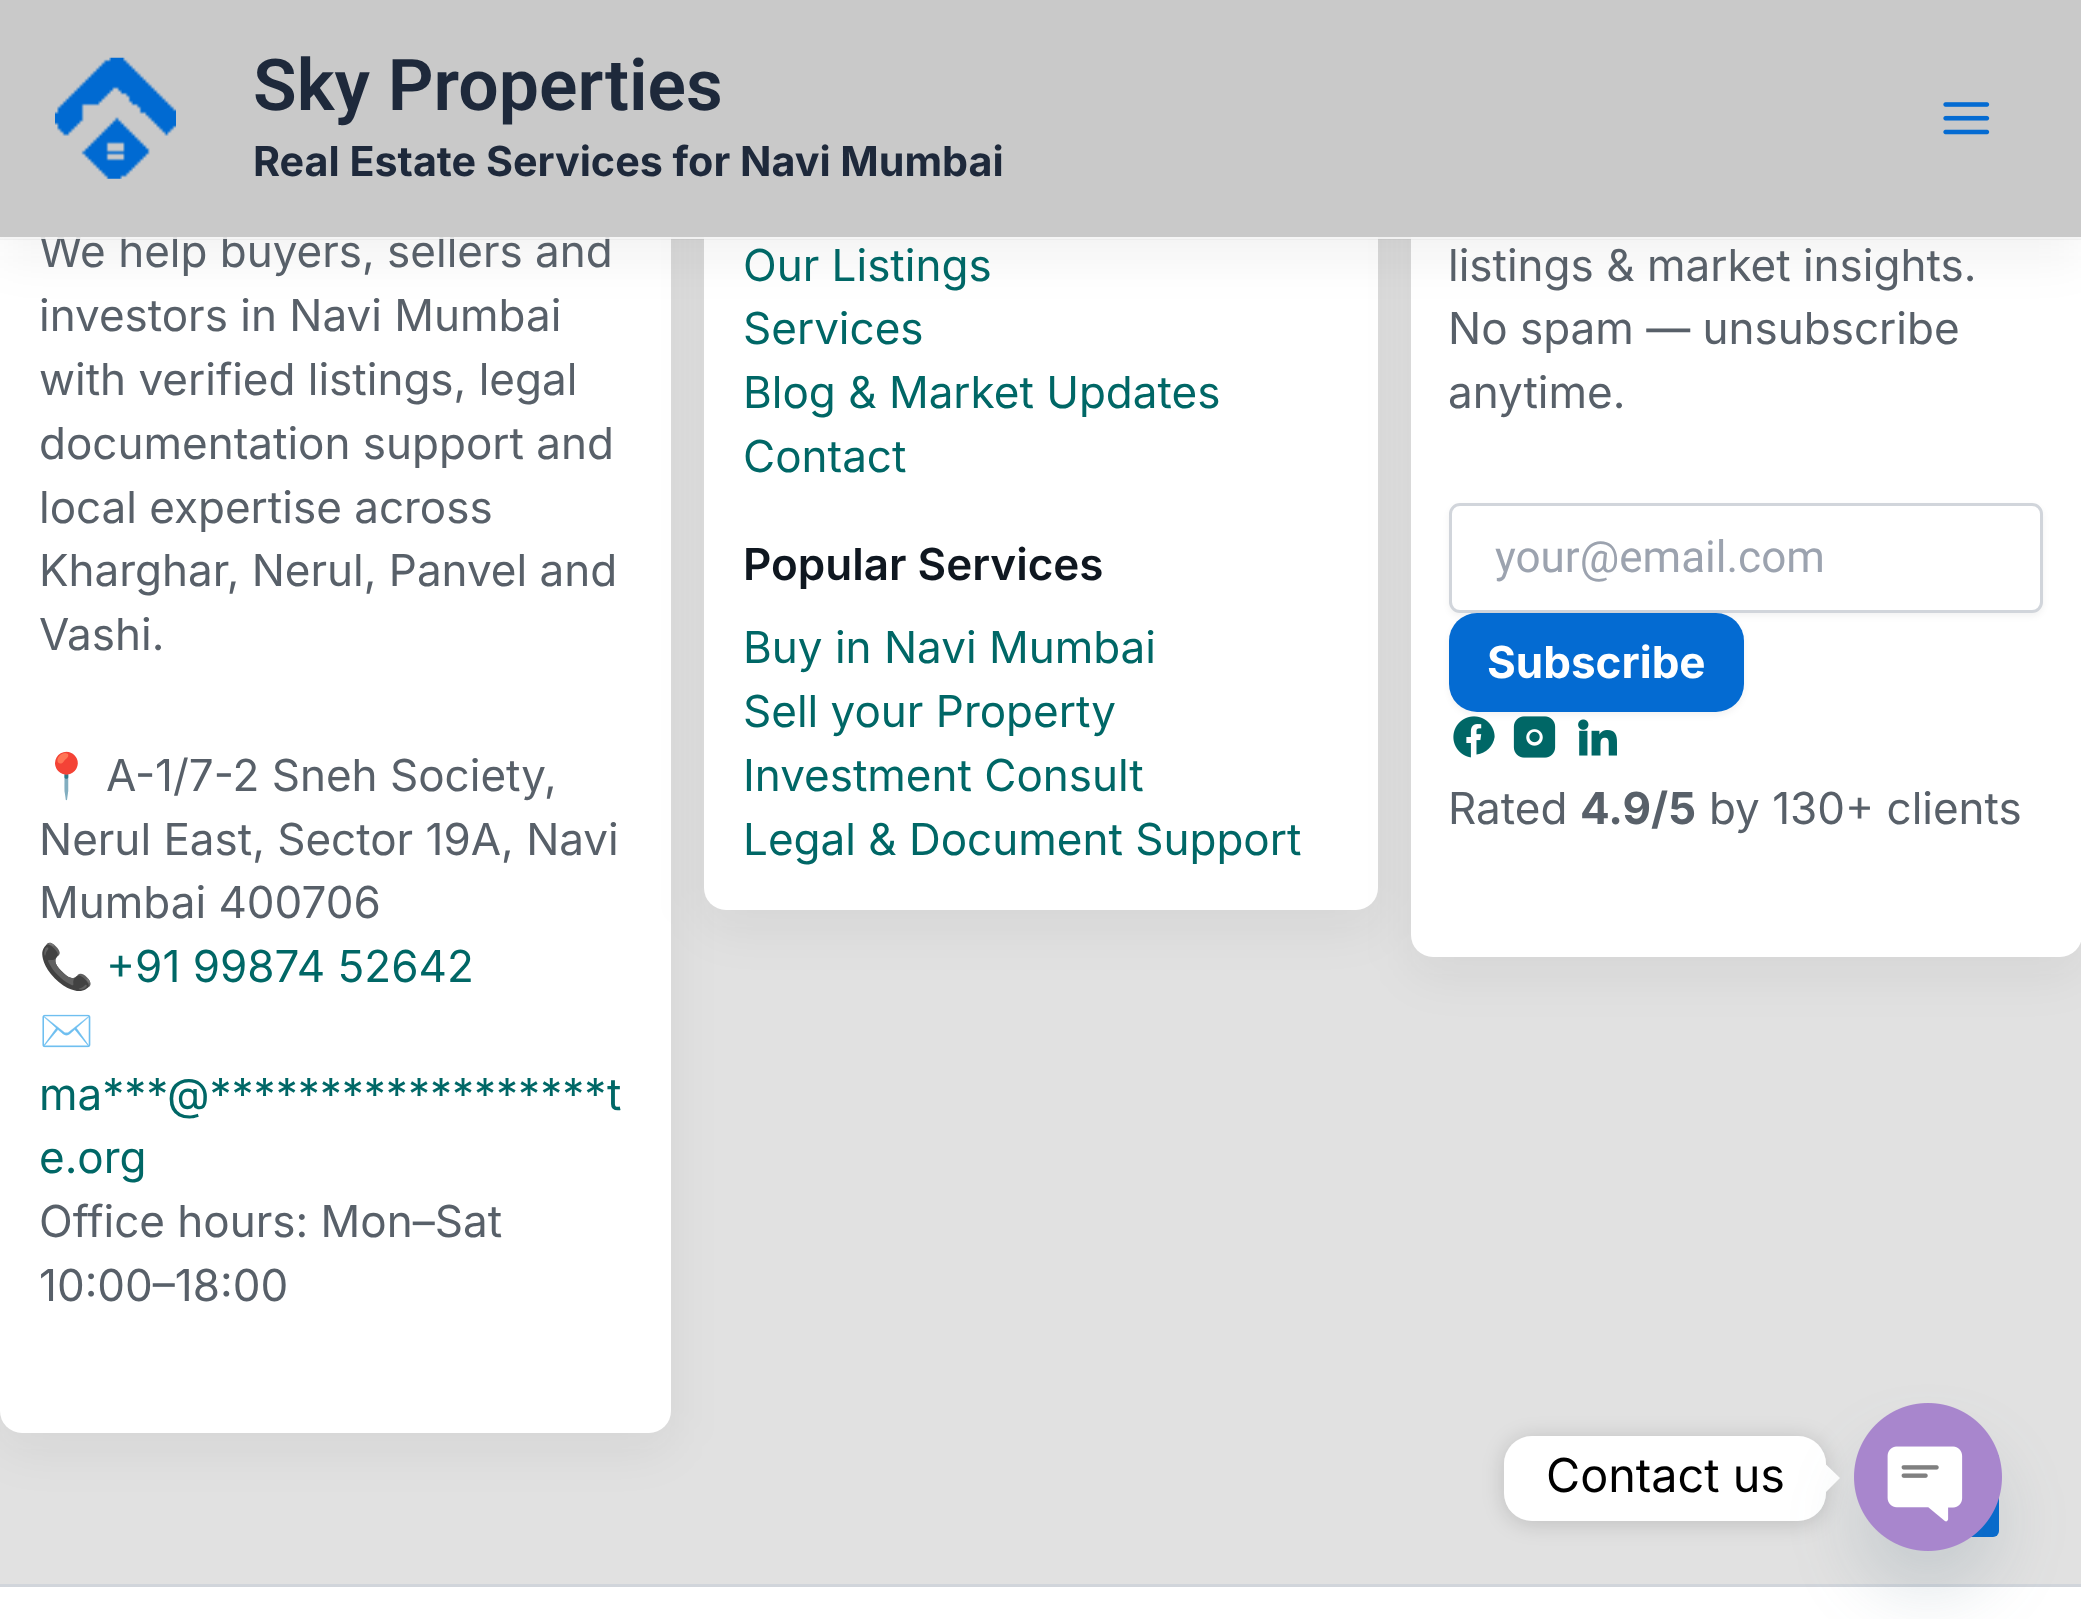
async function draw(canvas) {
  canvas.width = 2081
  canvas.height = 1619
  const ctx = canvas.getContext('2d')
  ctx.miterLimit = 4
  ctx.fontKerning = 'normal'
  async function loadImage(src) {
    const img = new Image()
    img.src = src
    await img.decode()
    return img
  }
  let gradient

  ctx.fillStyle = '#e1e1e1'
  ctx.fillRect(0, 0, 2081, 1619)
  ctx.fillStyle = '#0c12180f'
  ctx.filter = 'blur(25px)'
  ctx.beginPath()
  ctx.roundRect(0, 69, 671, 1380, 22)
  ctx.fill()
  ctx.filter = 'none'
  ctx.fillStyle = '#fff'
  ctx.beginPath()
  ctx.roundRect(0, 52, 671, 1381, 22)
  ctx.fill()
  ctx.fillStyle = '#0c12180f'
  ctx.filter = 'blur(25px)'
  ctx.beginPath()
  ctx.roundRect(704, 69, 674, 858, 22)
  ctx.fill()
  ctx.filter = 'none'
  ctx.fillStyle = '#fff'
  ctx.beginPath()
  ctx.roundRect(704, 52, 674, 858, 22)
  ctx.fill()
  ctx.fillStyle = '#0c12180f'
  ctx.filter = 'blur(25px)'
  ctx.beginPath()
  ctx.roundRect(1411, 69, 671, 905, 22)
  ctx.fill()
  ctx.filter = 'none'
  ctx.fillStyle = '#fff'
  ctx.beginPath()
  ctx.roundRect(1411, 52, 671, 905, 22)
  ctx.fill()
  ctx.fillStyle = '#0c12180f'
  ctx.filter = 'blur(25px)'
  ctx.beginPath()
  ctx.rect(0, 17, 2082, 239)
  ctx.fill()
  ctx.filter = 'none'
  ctx.font = '44px Inter'
  ctx.fillStyle = '#586069'
  ctx.fillText('We help buyers, sellers and', 39, 267)
  gradient = ctx.createLinearGradient(1041, 236, 1041, 473)
  gradient.addColorStop(0, '#ffffffe6')
  gradient.addColorStop(1, '#ffffffd9')
  ctx.fillStyle = gradient
  ctx.fillRect(0, 237, 2081, 2)
  ctx.fillStyle = '#0f17200a'
  ctx.fillRect(0, 237, 2081, 3)
  ctx.fillStyle = '#c9c9c9'
  ctx.fillRect(0, 0, 2081, 237)
  ctx.drawImage(await loadImage('image0.png'), 55, 57, 121, 122)
  ctx.font = '600 71.5px Roboto'
  ctx.fillStyle = '#1e293b'
  ctx.fillText('Sky Properties', 253, 110)
  ctx.font = 'bold 41.25px Inter'
  ctx.fillText('Real Estate Services for Navi Mumbai', 253, 176)
  ctx.drawImage(await loadImage('image1.png'), 1943, 102, 47, 33)
  ctx.font = '44px Inter'
  ctx.fillStyle = '#586069'
  ctx.fillText('investors in Navi Mumbai', 39, 331)
  ctx.fillText('with verified listings, legal', 39, 395)
  ctx.fillText('documentation support and', 39, 459)
  ctx.fillText('local expertise across', 39, 523)
  ctx.fillText('Kharghar, Nerul, Panvel and', 39, 586)
  ctx.fillText('Vashi.', 39, 650)
  ctx.font = 'bold 44px Noto Color Emoji'
  ctx.fillText('📍', 39, 791)
  ctx.font = '44px Inter'
  ctx.fillText('A-1/7-2 Sneh Society,', 106, 791)
  ctx.fillText('Nerul East, Sector 19A, Navi', 39, 855)
  ctx.fillText('Mumbai 400706', 39, 918)
  ctx.font = 'bold 44px Noto Color Emoji'
  ctx.fillText('📞', 39, 982)
  ctx.font = '44px Inter'
  ctx.fillStyle = '#006766'
  ctx.fillText('+91 99874 52642', 106, 982)
  ctx.font = 'bold 44px Noto Color Emoji'
  ctx.fillStyle = '#586069'
  ctx.fillText('✉️', 39, 1046)
  ctx.font = '44px Inter'
  ctx.fillStyle = '#006766'
  ctx.fillText('ma***', 39, 1110)
  ctx.fillText('@******************', 167, 1110)
  ctx.fillText('t', 607, 1110)
  ctx.fillText('e.org', 39, 1173)
  ctx.fillStyle = '#586069'
  ctx.fillText('Office hours: Mon–Sat', 39, 1237)
  ctx.fillText('10:00–18:00', 39, 1301)
  ctx.fillStyle = '#006766'
  ctx.fillText('Our Listings', 743, 281)
  ctx.fillText('Services', 743, 344)
  ctx.fillText('Blog & Market Updates', 743, 408)
  ctx.fillText('Contact', 743, 472)
  ctx.font = '600 44px Inter'
  ctx.fillStyle = '#0f1720'
  ctx.fillText('Popular Services', 743, 580)
  ctx.font = '44px Inter'
  ctx.fillStyle = '#006766'
  ctx.fillText('Buy in Navi Mumbai', 743, 663)
  ctx.fillText('Sell your Property', 743, 727)
  ctx.fillText('Investment Consult', 743, 791)
  ctx.fillText('Legal & Document Support', 743, 855)
  ctx.fillStyle = '#586069'
  ctx.fillText('listings & market insights.', 1448, 281)
  ctx.fillText('No spam — unsubscribe', 1448, 344)
  ctx.fillText('anytime.', 1448, 408)
  ctx.fillStyle = '#0000000d'
  ctx.filter = 'blur(3px)'
  ctx.beginPath()
  ctx.roundRect(1449, 506, 594, 110, 11)
  ctx.fill()
  ctx.filter = 'none'
  ctx.fillStyle = '#fff'
  ctx.beginPath()
  ctx.roundRect(1450.5, 504.5, 591, 107, 9.5)
  ctx.fill()
  ctx.strokeStyle = '#d1d5db'
  ctx.lineWidth = 3
  ctx.stroke()
  ctx.font = '44px Roboto'
  ctx.fillStyle = '#9ca3af'
  ctx.fillText('your@email.com', 1495, 572)
  ctx.fillStyle = '#0000000d'
  ctx.filter = 'blur(3px)'
  ctx.beginPath()
  ctx.roundRect(1449, 616, 295, 99, 28)
  ctx.fill()
  ctx.filter = 'none'
  ctx.fillStyle = '#046bd2'
  ctx.beginPath()
  ctx.roundRect(1449, 613, 295, 99, 28)
  ctx.fill()
  ctx.font = 'bold 44px Inter'
  ctx.fillStyle = '#fff'
  ctx.fillText('Subscribe', 1487, 678)
  ctx.drawImage(await loadImage('image2.png'), 1453, 716, 42, 42)
  ctx.drawImage(await loadImage('image3.png'), 1513, 716, 43, 42)
  ctx.drawImage(await loadImage('image4.png'), 1578, 719, 39, 37)
  ctx.font = '44px Inter'
  ctx.fillStyle = '#586069'
  ctx.fillText('Rated', 1448, 824)
  ctx.font = 'bold 44px Inter'
  ctx.fillText('4.9/5', 1580, 824)
  ctx.font = '44px Inter'
  ctx.fillText('by 130+ clients', 1709, 824)
  ctx.fillStyle = '#fff'
  ctx.fillRect(0, 1587, 2081, 32)
  ctx.fillStyle = '#d1d5db'
  ctx.fillRect(0, 1584, 2081, 3)
  ctx.save()
  ctx.beginPath()
  ctx.moveTo(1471, 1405)
  ctx.lineTo(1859, 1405)
  ctx.lineTo(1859, 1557)
  ctx.lineTo(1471, 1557)
  ctx.closePath()
  ctx.moveTo(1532, 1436)
  ctx.lineTo(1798, 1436)
  ctx.bezierCurveTo(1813.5, 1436, 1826, 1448.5, 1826, 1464)
  ctx.lineTo(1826, 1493)
  ctx.bezierCurveTo(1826, 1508.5, 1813.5, 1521, 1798, 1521)
  ctx.lineTo(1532, 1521)
  ctx.bezierCurveTo(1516.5, 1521, 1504, 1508.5, 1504, 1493)
  ctx.lineTo(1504, 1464)
  ctx.bezierCurveTo(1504, 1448.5, 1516.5, 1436, 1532, 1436)
  ctx.closePath()
  ctx.clip('evenodd')
  ctx.fillStyle = '#00000026'
  ctx.filter = 'blur(10.5px)'
  ctx.beginPath()
  ctx.roundRect(1504, 1438, 322, 86, 28)
  ctx.fill()
  ctx.filter = 'none'
  ctx.restore()
  ctx.fillStyle = '#fff'
  ctx.beginPath()
  ctx.roundRect(1504, 1436, 322, 85, 28)
  ctx.fill()
  ctx.font = '46.75px Inter'
  ctx.fillStyle = '#000'
  ctx.fillText('Contact us', 1546, 1492)
  ctx.fillStyle = '#fff'
  ctx.beginPath()
  ctx.moveTo(1826, 1492)
  ctx.lineTo(1826, 1464.5)
  ctx.lineTo(1840, 1478)
  ctx.closePath()
  ctx.fill()
  ctx.fillStyle = '#046bd2'
  ctx.beginPath()
  ctx.roundRect(1914, 1452, 85, 85, 6)
  ctx.fill()
  ctx.fillStyle = '#49687e29'
  ctx.filter = 'blur(33px)'
  ctx.beginPath()
  ctx.roundRect(1854, 1447, 148, 148, 74)
  ctx.fill()
  ctx.filter = 'none'
  ctx.drawImage(await loadImage('image5.png'), 1854, 1403, 148, 148)
}

draw(document.querySelector('canvas'))
